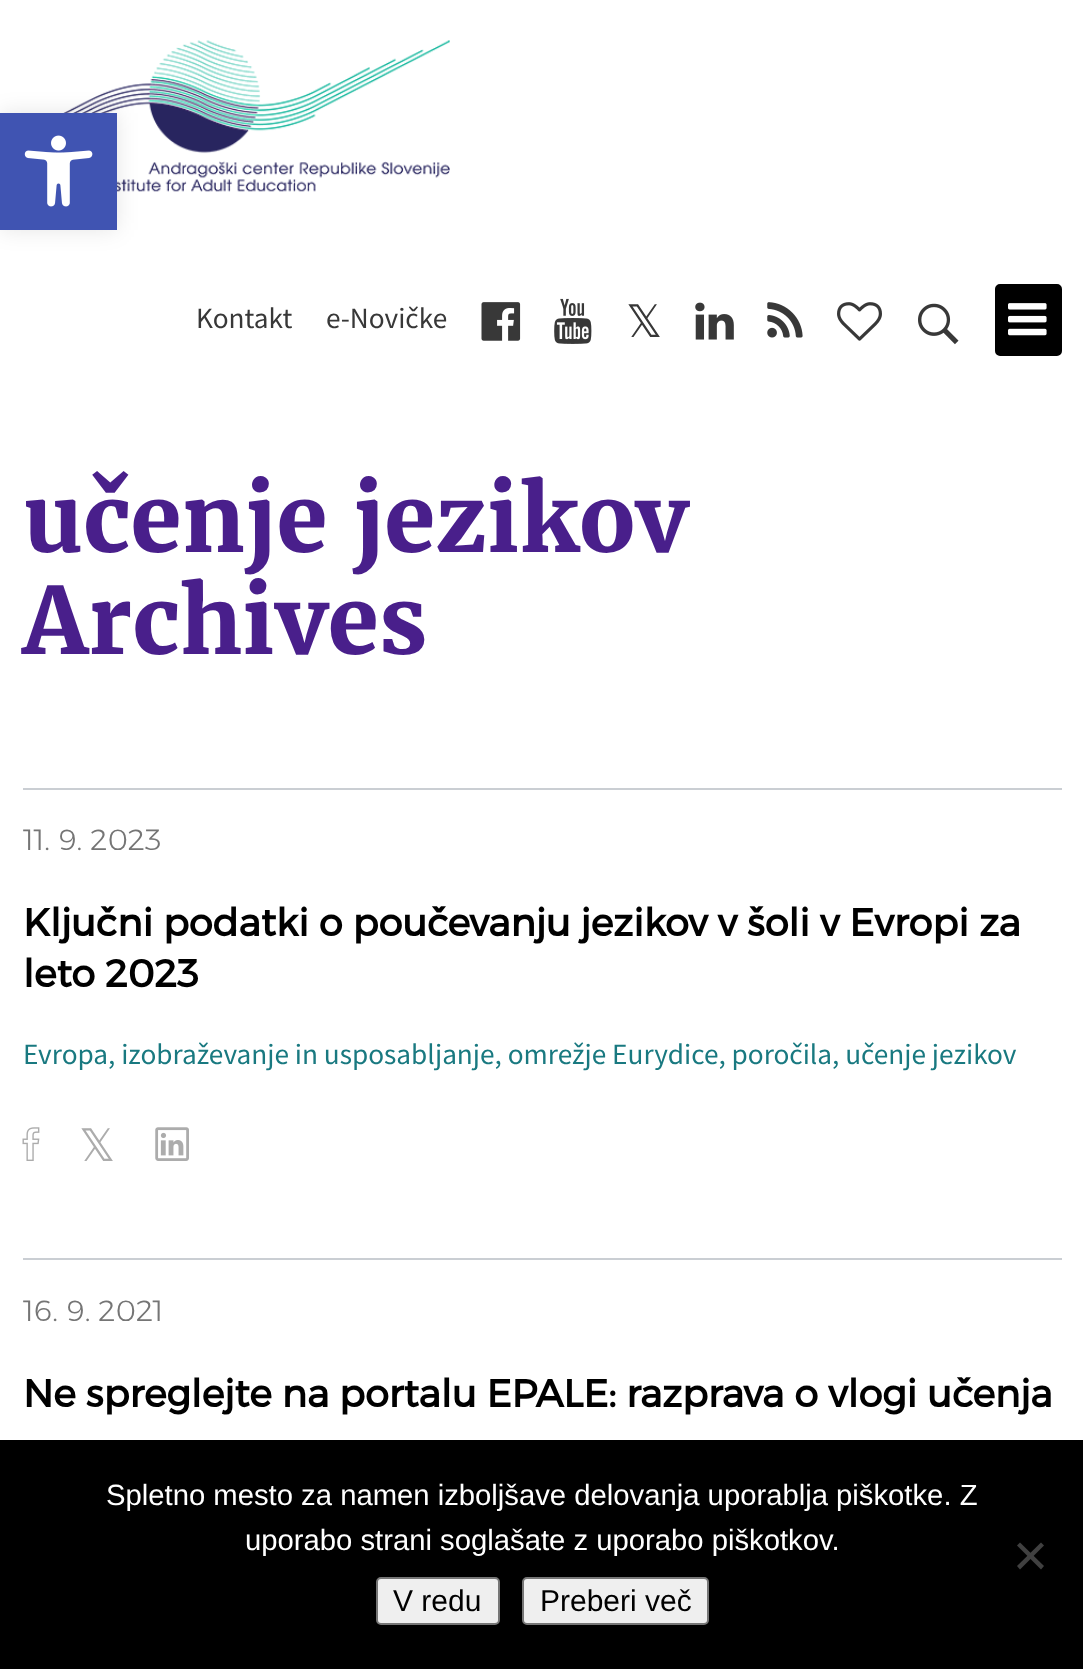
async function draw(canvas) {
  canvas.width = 1083
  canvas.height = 1669
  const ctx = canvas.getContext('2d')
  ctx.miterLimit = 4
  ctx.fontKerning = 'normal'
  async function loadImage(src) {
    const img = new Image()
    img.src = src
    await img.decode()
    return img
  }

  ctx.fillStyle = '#fff'
  ctx.fillRect(0, 0, 1083, 1669)
  ctx.drawImage(await loadImage('image1.png'), 63, 40, 387, 152)
  ctx.fillStyle = '#0000001a'
  ctx.filter = 'blur(11px)'
  ctx.beginPath()
  ctx.rect(0, 113, 117, 117)
  ctx.fill()
  ctx.filter = 'none'
  ctx.fillStyle = '#4054b2'
  ctx.fillRect(0, 113, 117, 117)
  ctx.drawImage(await loadImage('image0.png'), 24, 135, 69, 72)
  ctx.font = '29.25px Source Sans Pro'
  ctx.fillStyle = '#383838'
  ctx.fillText('Kontakt', 196, 328)
  ctx.fillText('e-Novičke', 326, 328)
  ctx.drawImage(await loadImage('image2.png'), 481, 302, 40, 39)
  ctx.drawImage(await loadImage('image3.png'), 554, 298, 38, 46)
  ctx.font = '45px DejaVu Sans'
  ctx.fillText('𝕏', 626, 337)
  ctx.drawImage(await loadImage('image4.png'), 695, 302, 39, 38)
  ctx.drawImage(await loadImage('image5.png'), 767, 302, 36, 36)
  ctx.drawImage(await loadImage('image6.png'), 837, 302, 45, 39)
  ctx.drawImage(await loadImage('image7.png'), 918, 303, 41, 42)
  ctx.fillStyle = '#000'
  ctx.beginPath()
  ctx.roundRect(996, 285, 65, 70, 4)
  ctx.fill()
  ctx.strokeStyle = '#000'
  ctx.lineWidth = 2
  ctx.stroke()
  ctx.drawImage(await loadImage('image8.png'), 1008, 303, 39, 33)
  ctx.font = 'bold 92.25px Merriweather'
  ctx.fillStyle = '#491f8b'
  ctx.fillText('učenje jezikov', 23, 552)
  ctx.fillText('Archives', 23, 654)
  ctx.fillStyle = '#caced3'
  ctx.fillRect(23, 788, 1039, 2)
  ctx.font = '300 29.25px Montserrat'
  ctx.fillStyle = '#757575'
  ctx.fillText('11. 9. 2023', 23, 850)
  ctx.font = 'bold 38.25px Montserrat'
  ctx.fillStyle = '#000'
  ctx.fillText('Ključni podatki o poučevanju jezikov v šoli v Evropi za', 23, 936)
  ctx.fillText('leto 2023', 23, 987)
  ctx.font = '29.25px Source Sans Pro'
  ctx.fillStyle = '#197980'
  ctx.fillText('Evropa, izobraževanje in usposabljanje, omrežje Eurydice, poročila, učenje jezikov', 23, 1064)
  ctx.drawImage(await loadImage('image9.png'), 22, 1127, 18, 34)
  ctx.font = '45px DejaVu Sans'
  ctx.fillStyle = '#acacac'
  ctx.fillText('𝕏', 79, 1161)
  ctx.drawImage(await loadImage('image10.png'), 155, 1127, 34, 34)
  ctx.fillStyle = '#caced3'
  ctx.fillRect(23, 1258, 1039, 2)
  ctx.font = '300 29.25px Montserrat'
  ctx.fillStyle = '#757575'
  ctx.fillText('16. 9. 2021', 23, 1321)
  ctx.font = 'bold 38.25px Montserrat'
  ctx.fillStyle = '#000'
  ctx.fillText('Ne spreglejte na portalu EPALE: razprava o vlogi učenja', 23, 1407)
  ctx.fillRect(0, 1440, 1083, 229)
  ctx.font = '29.25px Liberation Sans'
  ctx.fillStyle = '#fff'
  ctx.fillText('Spletno mesto za namen izboljšave delovanja uporablja piškotke. Z', 106, 1505)
  ctx.fillText('uporabo strani soglašate z uporabo piškotkov.', 245, 1550)
  ctx.fillStyle = '#404040'
  ctx.beginPath()
  ctx.moveTo(1041, 1542.5)
  ctx.lineTo(1044, 1545.5)
  ctx.lineTo(1020, 1569.5)
  ctx.lineTo(1017, 1566)
  ctx.closePath()
  ctx.fill()
  ctx.beginPath()
  ctx.moveTo(1017, 1545.5)
  ctx.lineTo(1020, 1542.5)
  ctx.lineTo(1044, 1566)
  ctx.lineTo(1041, 1569.5)
  ctx.closePath()
  ctx.fill()
  ctx.fillStyle = '#efefef'
  ctx.beginPath()
  ctx.roundRect(377, 1578, 122, 46, 4)
  ctx.fill()
  ctx.strokeStyle = '#767676'
  ctx.stroke()
  ctx.font = '30px Liberation Sans'
  ctx.fillStyle = '#000'
  ctx.fillText('V redu', 393, 1611)
  ctx.fillStyle = '#efefef'
  ctx.beginPath()
  ctx.roundRect(523, 1578, 185, 46, 4)
  ctx.fill()
  ctx.stroke()
  ctx.fillStyle = '#000'
  ctx.fillText('Preberi več', 540, 1611)
}

draw(document.querySelector('canvas'))
